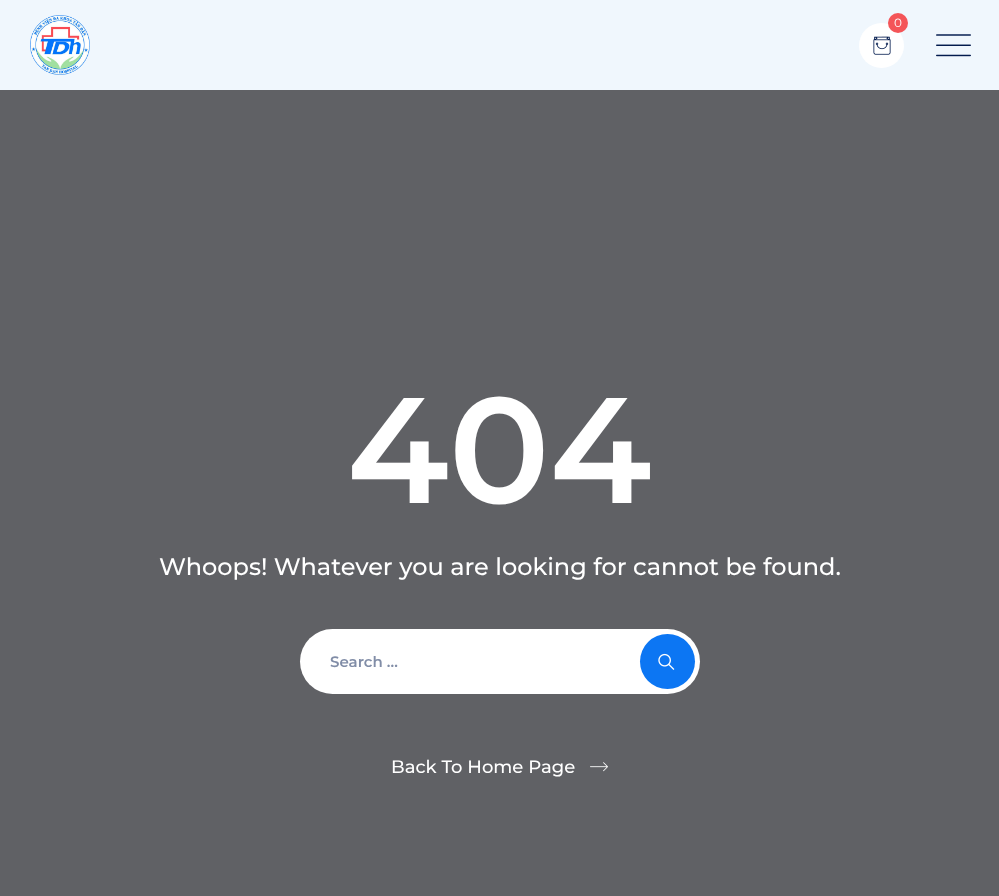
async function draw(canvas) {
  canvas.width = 999
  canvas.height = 896
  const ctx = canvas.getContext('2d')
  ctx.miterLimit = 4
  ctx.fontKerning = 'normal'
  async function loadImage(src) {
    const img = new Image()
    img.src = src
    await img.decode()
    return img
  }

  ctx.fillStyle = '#f0f7fd'
  ctx.fillRect(0, 0, 999, 896)
  ctx.drawImage(await loadImage('image0.png'), 30, 15, 60, 60)
  ctx.fillStyle = '#fff'
  ctx.beginPath()
  ctx.arc(881.5, 45.5, 22.5, 0, 2 * Math.PI)
  ctx.fill()
  ctx.fillStyle = '#f45558'
  ctx.beginPath()
  ctx.arc(898, 23, 10, 0, 2 * Math.PI)
  ctx.fill()
  ctx.font = '12px Montserrat'
  ctx.fillStyle = '#fff'
  ctx.fillText('0', 894, 27)
  ctx.drawImage(await loadImage('image1.png'), 873, 36, 18, 19)
  ctx.drawImage(await loadImage('image2.png'), 936, 34, 35, 23)
  ctx.fillStyle = '#606165'
  ctx.fillRect(0, 90, 999, 806)
  ctx.font = '600 150px Montserrat'
  ctx.fillStyle = '#fff'
  ctx.fillText('404', 347, 503)
  ctx.font = '500 24px Montserrat'
  ctx.fillText('Whoops! Whatever you are looking for cannot be found.', 159, 575)
  ctx.beginPath()
  ctx.roundRect(300, 629, 400, 65, 32.5)
  ctx.fill()
  ctx.font = '600 15px Montserrat'
  ctx.fillStyle = '#818da7'
  ctx.fillText('Search …', 330, 667)
  ctx.fillStyle = '#0c76f3'
  ctx.beginPath()
  ctx.arc(667.5, 661.5, 27.5, 0, 2 * Math.PI)
  ctx.fill()
  ctx.drawImage(await loadImage('image3.png'), 658, 653, 17, 17)
  ctx.font = '500 18px Montserrat'
  ctx.fillStyle = '#fff'
  ctx.fillText('Back To Home Page', 391, 773)
  ctx.drawImage(await loadImage('image4.png'), 590, 762, 18, 10)
}

draw(document.querySelector('canvas'))
